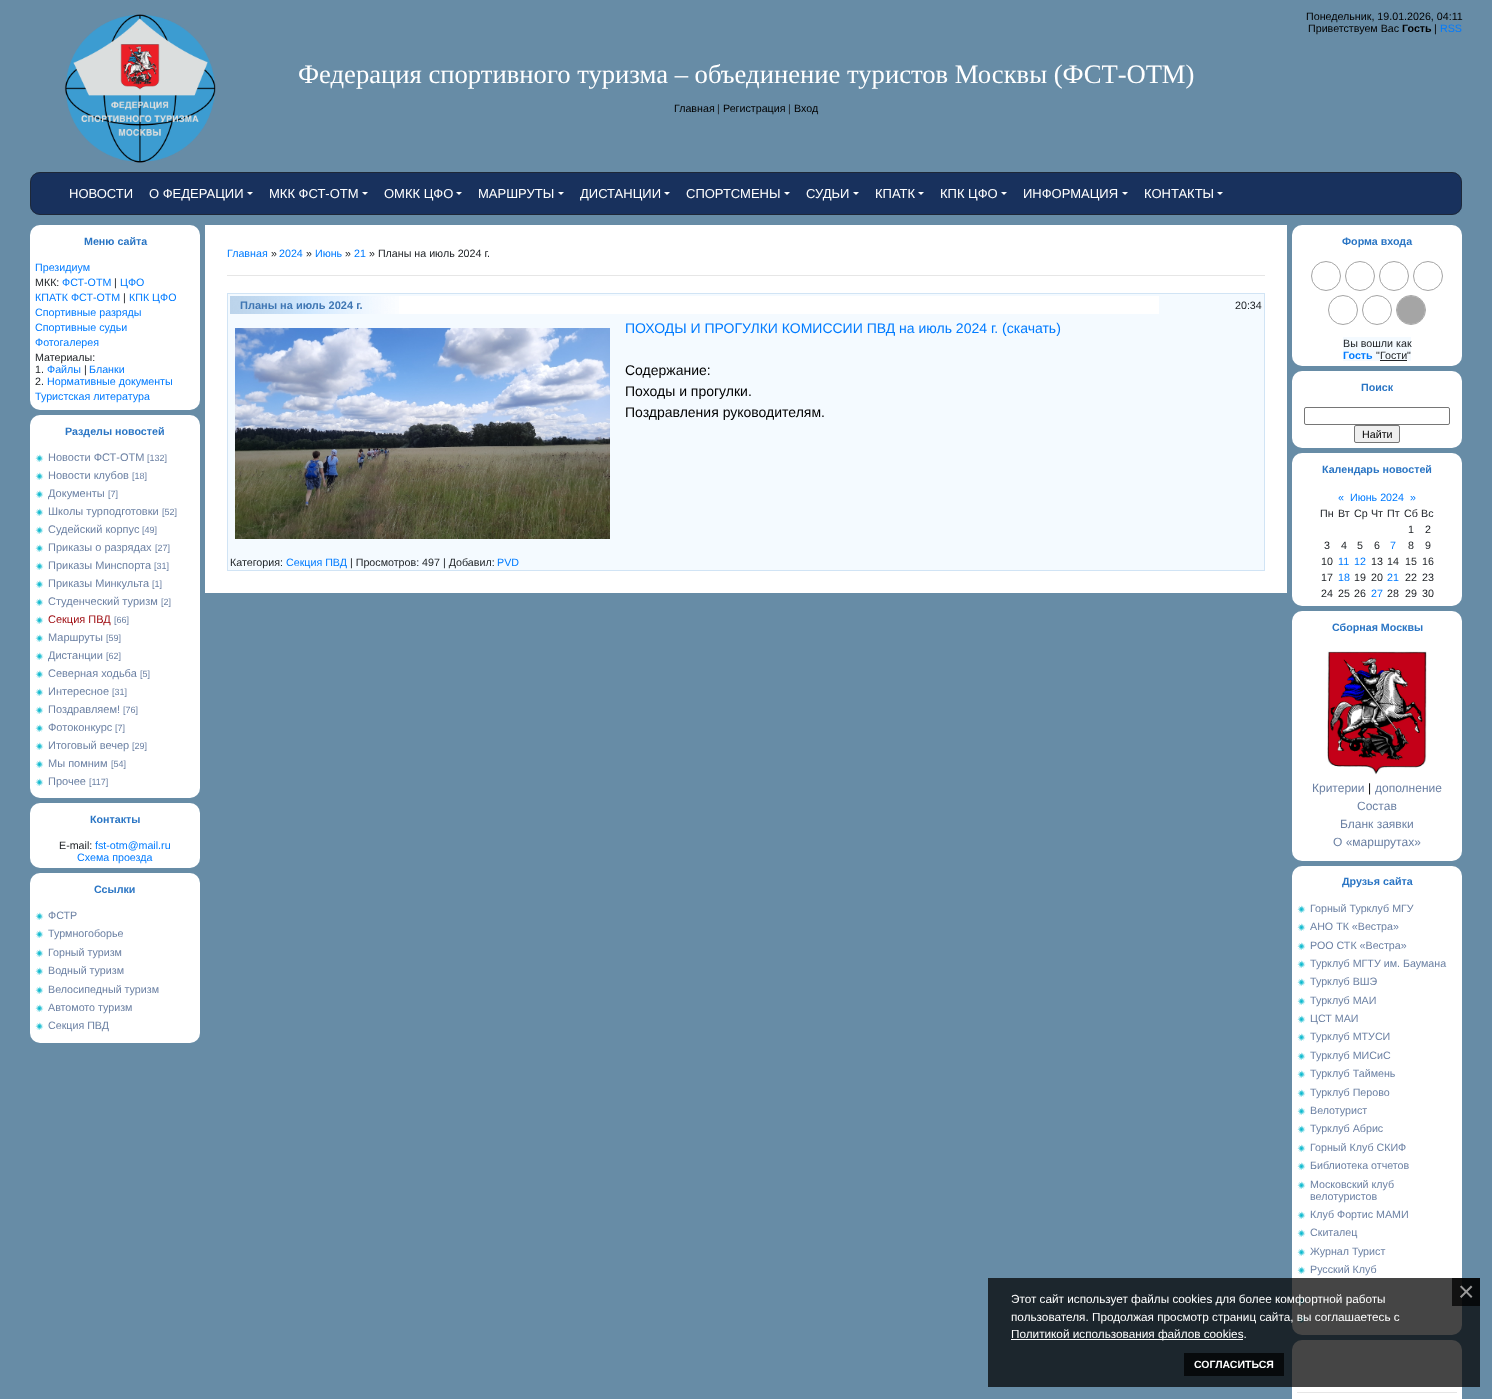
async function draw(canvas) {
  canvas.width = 1492
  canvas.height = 1399
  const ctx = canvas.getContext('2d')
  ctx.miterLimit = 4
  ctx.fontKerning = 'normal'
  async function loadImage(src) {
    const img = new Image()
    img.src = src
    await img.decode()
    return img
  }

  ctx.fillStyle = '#678ca6'
  ctx.fillRect(0, 0, 1492, 1399)
  ctx.drawImage(await loadImage('image0.png'), 64, 14, 152, 149)
  ctx.font = '26.65px Liberation Serif'
  ctx.fillStyle = '#fff'
  ctx.fillText('Федерация спортивного туризма – объединение туристов Москвы (ФСТ-ОТМ)', 298, 83)
  ctx.font = '10.7px Liberation Sans'
  ctx.fillStyle = '#000'
  ctx.fillText('Главная', 674, 112)
  ctx.fillStyle = '#212529'
  ctx.fillText('|', 717, 112)
  ctx.fillStyle = '#000'
  ctx.fillText('Регистрация', 723, 112)
  ctx.fillStyle = '#212529'
  ctx.fillText('|', 788, 112)
  ctx.fillStyle = '#000'
  ctx.fillText('Вход', 794, 112)
  ctx.fillText('Понедельник, 19.01.2026, 04:11', 1306, 20)
  ctx.fillText('Приветствуем Вас', 1308, 32)
  ctx.font = 'bold 10.7px Liberation Sans'
  ctx.fillText('Гость', 1402, 32)
  ctx.font = '10.7px Liberation Sans'
  ctx.fillText('|', 1434, 32)
  ctx.fillStyle = '#007bff'
  ctx.fillText('RSS', 1440, 32)
  ctx.fillStyle = '#18315d'
  ctx.beginPath()
  ctx.roundRect(30, 172, 1432, 43, 10)
  ctx.fill()
  ctx.beginPath()
  ctx.roundRect(30.5, 172.5, 1431, 42, 9.5)
  ctx.strokeStyle = '#212529b3'
  ctx.stroke()
  ctx.font = '13px Liberation Sans'
  ctx.fillStyle = '#fff'
  ctx.fillText('НОВОСТИ', 69, 198)
  ctx.fillText('О ФЕДЕРАЦИИ', 149, 198)
  ctx.beginPath()
  ctx.moveTo(247, 192)
  ctx.lineTo(253, 192)
  ctx.lineTo(250, 195)
  ctx.closePath()
  ctx.fill()
  ctx.fillText('МКК ФСТ-ОТМ', 269, 198)
  ctx.beginPath()
  ctx.moveTo(362, 192)
  ctx.lineTo(368, 192)
  ctx.lineTo(365, 195)
  ctx.closePath()
  ctx.fill()
  ctx.fillText('ОМКК ЦФО', 384, 198)
  ctx.beginPath()
  ctx.moveTo(456, 192)
  ctx.lineTo(462, 192)
  ctx.lineTo(459, 195)
  ctx.closePath()
  ctx.fill()
  ctx.fillText('МАРШРУТЫ', 478, 198)
  ctx.beginPath()
  ctx.moveTo(558, 192)
  ctx.lineTo(564, 192)
  ctx.lineTo(561, 195)
  ctx.closePath()
  ctx.fill()
  ctx.fillText('ДИСТАНЦИИ', 580, 198)
  ctx.beginPath()
  ctx.moveTo(664, 192)
  ctx.lineTo(670, 192)
  ctx.lineTo(667, 195)
  ctx.closePath()
  ctx.fill()
  ctx.fillText('СПОРТСМЕНЫ', 686, 198)
  ctx.beginPath()
  ctx.moveTo(784, 192)
  ctx.lineTo(790, 192)
  ctx.lineTo(787, 195)
  ctx.closePath()
  ctx.fill()
  ctx.fillText('СУДЬИ', 806, 198)
  ctx.beginPath()
  ctx.moveTo(853, 192)
  ctx.lineTo(859, 192)
  ctx.lineTo(856, 195)
  ctx.closePath()
  ctx.fill()
  ctx.fillText('КПАТК', 875, 198)
  ctx.beginPath()
  ctx.moveTo(918, 192)
  ctx.lineTo(924, 192)
  ctx.lineTo(921, 195)
  ctx.closePath()
  ctx.fill()
  ctx.fillText('КПК ЦФО', 940, 198)
  ctx.beginPath()
  ctx.moveTo(1001, 192)
  ctx.lineTo(1007, 192)
  ctx.lineTo(1004, 195)
  ctx.closePath()
  ctx.fill()
  ctx.fillText('ИНФОРМАЦИЯ', 1023, 198)
  ctx.beginPath()
  ctx.moveTo(1122, 192)
  ctx.lineTo(1128, 192)
  ctx.lineTo(1125, 195)
  ctx.closePath()
  ctx.fill()
  ctx.fillText('КОНТАКТЫ', 1144, 198)
  ctx.beginPath()
  ctx.moveTo(1217, 192)
  ctx.lineTo(1223, 192)
  ctx.lineTo(1220, 195)
  ctx.closePath()
  ctx.fill()
  ctx.beginPath()
  ctx.roundRect(30, 225, 170, 31, [10, 10, 0, 0])
  ctx.fill()
  ctx.font = 'bold 10.7px Liberation Sans'
  ctx.fillStyle = '#2a75c4'
  ctx.fillText('Меню сайта', 84, 245)
  ctx.fillStyle = '#fff'
  ctx.beginPath()
  ctx.roundRect(30, 256, 170, 154, [0, 0, 10, 10])
  ctx.fill()
  ctx.font = '10.7px Liberation Sans'
  ctx.fillStyle = '#007bff'
  ctx.fillText('Президиум', 35, 271)
  ctx.fillStyle = '#212529'
  ctx.fillText('МКК:', 35, 286)
  ctx.fillStyle = '#007bff'
  ctx.fillText('ФСТ-ОТМ', 62, 286)
  ctx.fillStyle = '#212529'
  ctx.fillText('|', 114, 286)
  ctx.fillStyle = '#007bff'
  ctx.fillText('ЦФО', 120, 286)
  ctx.fillText('КПАТК ФСТ-ОТМ', 35, 301)
  ctx.fillStyle = '#212529'
  ctx.fillText('|', 123, 301)
  ctx.fillStyle = '#007bff'
  ctx.fillText('КПК ЦФО', 129, 301)
  ctx.fillText('Cпортивные разряды', 35, 316)
  ctx.fillText('Спортивные судьи', 35, 331)
  ctx.fillText('Фотогалерея', 35, 346)
  ctx.fillStyle = '#212529'
  ctx.fillText('Материалы:', 35, 361)
  ctx.fillText('1.', 35, 373)
  ctx.fillStyle = '#007bff'
  ctx.fillText('Файлы', 47, 373)
  ctx.fillStyle = '#212529'
  ctx.fillText('|', 84, 373)
  ctx.fillStyle = '#007bff'
  ctx.fillText('Бланки', 89, 373)
  ctx.fillStyle = '#212529'
  ctx.fillText('2.', 35, 385)
  ctx.fillStyle = '#007bff'
  ctx.fillText('Нормативные документы', 47, 385)
  ctx.fillText('Туристская литература', 35, 400)
  ctx.fillStyle = '#fff'
  ctx.beginPath()
  ctx.roundRect(30, 415, 170, 31, [10, 10, 0, 0])
  ctx.fill()
  ctx.font = 'bold 10.7px Liberation Sans'
  ctx.fillStyle = '#2a75c4'
  ctx.fillText('Разделы новостей', 65, 435)
  ctx.fillStyle = '#fff'
  ctx.beginPath()
  ctx.roundRect(30, 446, 170, 352, [0, 0, 10, 10])
  ctx.fill()
  ctx.drawImage(await loadImage('image1.png'), 35, 454, 9, 8)
  ctx.font = '11px Liberation Sans'
  ctx.fillStyle = '#6b80a3'
  ctx.fillText('Новости ФСТ-ОТМ', 48, 461)
  ctx.font = '9px Liberation Sans'
  ctx.fillText('[132]', 147, 461)
  ctx.drawImage(await loadImage('image1.png'), 35, 472, 9, 8)
  ctx.font = '11px Liberation Sans'
  ctx.fillText('Новости клубов', 48, 479)
  ctx.font = '9px Liberation Sans'
  ctx.fillText('[18]', 132, 479)
  ctx.drawImage(await loadImage('image1.png'), 35, 490, 9, 8)
  ctx.font = '11px Liberation Sans'
  ctx.fillText('Документы', 48, 497)
  ctx.font = '9px Liberation Sans'
  ctx.fillText('[7]', 108, 497)
  ctx.drawImage(await loadImage('image1.png'), 35, 508, 9, 8)
  ctx.font = '11px Liberation Sans'
  ctx.fillText('Школы турподготовки', 48, 515)
  ctx.font = '9px Liberation Sans'
  ctx.fillText('[52]', 162, 515)
  ctx.drawImage(await loadImage('image1.png'), 35, 526, 9, 8)
  ctx.font = '11px Liberation Sans'
  ctx.fillText('Судейский корпус', 48, 533)
  ctx.font = '9px Liberation Sans'
  ctx.fillText('[49]', 142, 533)
  ctx.drawImage(await loadImage('image1.png'), 35, 544, 9, 8)
  ctx.font = '11px Liberation Sans'
  ctx.fillText('Приказы о разрядах', 48, 551)
  ctx.font = '9px Liberation Sans'
  ctx.fillText('[27]', 155, 551)
  ctx.drawImage(await loadImage('image1.png'), 35, 562, 9, 8)
  ctx.font = '11px Liberation Sans'
  ctx.fillText('Приказы Минспорта', 48, 569)
  ctx.font = '9px Liberation Sans'
  ctx.fillText('[31]', 154, 569)
  ctx.drawImage(await loadImage('image1.png'), 35, 580, 9, 8)
  ctx.font = '11px Liberation Sans'
  ctx.fillText('Приказы Минкульта', 48, 587)
  ctx.font = '9px Liberation Sans'
  ctx.fillText('[1]', 152, 587)
  ctx.drawImage(await loadImage('image1.png'), 35, 598, 9, 8)
  ctx.font = '11px Liberation Sans'
  ctx.fillText('Студенческий туризм', 48, 605)
  ctx.font = '9px Liberation Sans'
  ctx.fillText('[2]', 161, 605)
  ctx.drawImage(await loadImage('image1.png'), 35, 616, 9, 8)
  ctx.font = '11px Liberation Sans'
  ctx.fillStyle = '#9d080d'
  ctx.fillText('Секция ПВД', 48, 623)
  ctx.font = '9px Liberation Sans'
  ctx.fillStyle = '#6b80a3'
  ctx.fillText('[66]', 114, 623)
  ctx.drawImage(await loadImage('image1.png'), 35, 634, 9, 8)
  ctx.font = '11px Liberation Sans'
  ctx.fillText('Маршруты', 48, 641)
  ctx.font = '9px Liberation Sans'
  ctx.fillText('[59]', 106, 641)
  ctx.drawImage(await loadImage('image1.png'), 35, 652, 9, 8)
  ctx.font = '11px Liberation Sans'
  ctx.fillText('Дистанции', 48, 659)
  ctx.font = '9px Liberation Sans'
  ctx.fillText('[62]', 106, 659)
  ctx.drawImage(await loadImage('image1.png'), 35, 670, 9, 8)
  ctx.font = '11px Liberation Sans'
  ctx.fillText('Северная ходьба', 48, 677)
  ctx.font = '9px Liberation Sans'
  ctx.fillText('[5]', 140, 677)
  ctx.drawImage(await loadImage('image1.png'), 35, 688, 9, 8)
  ctx.font = '11px Liberation Sans'
  ctx.fillText('Интересное', 48, 695)
  ctx.font = '9px Liberation Sans'
  ctx.fillText('[31]', 112, 695)
  ctx.drawImage(await loadImage('image1.png'), 35, 706, 9, 8)
  ctx.font = '11px Liberation Sans'
  ctx.fillText('Поздравляем!', 48, 713)
  ctx.font = '9px Liberation Sans'
  ctx.fillText('[76]', 123, 713)
  ctx.drawImage(await loadImage('image1.png'), 35, 724, 9, 8)
  ctx.font = '11px Liberation Sans'
  ctx.fillText('Фотоконкурс', 48, 731)
  ctx.font = '9px Liberation Sans'
  ctx.fillText('[7]', 115, 731)
  ctx.drawImage(await loadImage('image1.png'), 35, 742, 9, 8)
  ctx.font = '11px Liberation Sans'
  ctx.fillText('Итоговый вечер', 48, 749)
  ctx.font = '9px Liberation Sans'
  ctx.fillText('[29]', 132, 749)
  ctx.drawImage(await loadImage('image1.png'), 35, 760, 9, 8)
  ctx.font = '11px Liberation Sans'
  ctx.fillText('Мы помним', 48, 767)
  ctx.font = '9px Liberation Sans'
  ctx.fillText('[54]', 111, 767)
  ctx.drawImage(await loadImage('image1.png'), 35, 778, 9, 8)
  ctx.font = '11px Liberation Sans'
  ctx.fillText('Прочее', 48, 785)
  ctx.font = '9px Liberation Sans'
  ctx.fillText('[117]', 89, 785)
  ctx.fillStyle = '#fff'
  ctx.beginPath()
  ctx.roundRect(30, 803, 170, 31, [10, 10, 0, 0])
  ctx.fill()
  ctx.font = 'bold 10.7px Liberation Sans'
  ctx.fillStyle = '#2a75c4'
  ctx.fillText('Контакты', 90, 823)
  ctx.fillStyle = '#fff'
  ctx.beginPath()
  ctx.roundRect(30, 834, 170, 34, [0, 0, 10, 10])
  ctx.fill()
  ctx.font = '10.7px Liberation Sans'
  ctx.fillStyle = '#212529'
  ctx.fillText('E-mail:', 59, 849)
  ctx.fillStyle = '#007bff'
  ctx.fillText('fst-otm@mail.ru', 95, 849)
  ctx.fillText('Схема проезда', 77, 861)
  ctx.fillStyle = '#fff'
  ctx.beginPath()
  ctx.roundRect(30, 873, 170, 31, [10, 10, 0, 0])
  ctx.fill()
  ctx.font = 'bold 10.7px Liberation Sans'
  ctx.fillStyle = '#2a75c4'
  ctx.fillText('Ссылки', 94, 893)
  ctx.fillStyle = '#fff'
  ctx.beginPath()
  ctx.roundRect(30, 904, 170, 139, [0, 0, 10, 10])
  ctx.fill()
  ctx.drawImage(await loadImage('image1.png'), 35, 912, 9, 8)
  ctx.font = '10.7px Liberation Sans'
  ctx.fillStyle = '#6b80a3'
  ctx.fillText('ФСТР', 48, 919)
  ctx.drawImage(await loadImage('image1.png'), 35, 930, 9, 8)
  ctx.fillText('Турмногоборье', 48, 937)
  ctx.drawImage(await loadImage('image1.png'), 35, 949, 9, 8)
  ctx.fillText('Горный туризм', 48, 956)
  ctx.drawImage(await loadImage('image1.png'), 35, 967, 9, 8)
  ctx.fillText('Водный туризм', 48, 974)
  ctx.drawImage(await loadImage('image1.png'), 35, 986, 9, 8)
  ctx.fillText('Велосипедный туризм', 48, 993)
  ctx.drawImage(await loadImage('image1.png'), 35, 1004, 9, 8)
  ctx.fillText('Автомото туризм', 48, 1011)
  ctx.drawImage(await loadImage('image1.png'), 35, 1022, 9, 8)
  ctx.fillText('Секция ПВД', 48, 1029)
  ctx.fillStyle = '#fff'
  ctx.fillRect(205, 225, 1082, 368)
  ctx.fillStyle = '#007bff'
  ctx.fillText('Главная', 227, 257)
  ctx.fillStyle = '#212529'
  ctx.fillText('»', 271, 257)
  ctx.fillStyle = '#007bff'
  ctx.fillText('2024', 279, 257)
  ctx.fillStyle = '#212529'
  ctx.fillText('»', 306, 257)
  ctx.fillStyle = '#007bff'
  ctx.fillText('Июнь', 315, 257)
  ctx.fillStyle = '#212529'
  ctx.fillText('»', 345, 257)
  ctx.fillStyle = '#007bff'
  ctx.fillText('21', 354, 257)
  ctx.fillStyle = '#212529'
  ctx.fillText('» Планы на июль 2024 г.', 369, 257)
  ctx.fillStyle = '#e6e6e6'
  ctx.fillRect(227, 275, 1038, 1)
  ctx.fillStyle = '#f4faff'
  ctx.fillRect(228, 294, 1036, 276)
  ctx.fillStyle = '#d1e4f5'
  ctx.fillRect(227, 293, 1038, 1)
  ctx.fillRect(1264, 293, 1, 278)
  ctx.fillRect(227, 570, 1038, 1)
  ctx.fillRect(227, 293, 1, 278)
  ctx.fillStyle = '#fff'
  ctx.fillRect(399, 296, 760, 18)
  ctx.drawImage(await loadImage('image2.png'), 230, 296, 169, 18)
  ctx.font = 'bold 11px Liberation Sans'
  ctx.fillStyle = '#3f76b3'
  ctx.fillText('Планы на июль 2024 г.', 240, 309)
  ctx.font = '10.7px Liberation Sans'
  ctx.fillStyle = '#212529'
  ctx.fillText('20:34', 1235, 309)
  ctx.drawImage(await loadImage('image3.png'), 235, 328, 375, 211)
  ctx.font = '14px Liberation Sans'
  ctx.fillStyle = '#007bff'
  ctx.fillText('ПОХОДЫ И ПРОГУЛКИ КОМИССИИ ПВД на июль 2024 г. (скачать)', 625, 333)
  ctx.fillStyle = '#000'
  ctx.fillText('Содержание:', 625, 375)
  ctx.fillText('Походы и прогулки.', 625, 396)
  ctx.fillText('Поздравления руководителям.', 625, 417)
  ctx.font = '10.7px Liberation Sans'
  ctx.fillStyle = '#212529'
  ctx.fillText('Категория:', 230, 566)
  ctx.fillStyle = '#007bff'
  ctx.fillText('Секция ПВД', 286, 566)
  ctx.fillStyle = '#212529'
  ctx.fillText('| Просмотров: 497 | Добавил:', 350, 566)
  ctx.fillStyle = '#007bff'
  ctx.fillText('PVD', 497, 566)
  ctx.fillStyle = '#fff'
  ctx.beginPath()
  ctx.roundRect(1292, 225, 170, 31, [10, 10, 0, 0])
  ctx.fill()
  ctx.font = 'bold 10.7px Liberation Sans'
  ctx.fillStyle = '#2a75c4'
  ctx.fillText('Форма входа', 1342, 245)
  ctx.fillStyle = '#fff'
  ctx.beginPath()
  ctx.roundRect(1292, 256, 170, 110, [0, 0, 10, 10])
  ctx.fill()
  ctx.beginPath()
  ctx.arc(1326, 276, 14.5, 0, 2 * Math.PI)
  ctx.strokeStyle = '#a5a5a5'
  ctx.stroke()
  ctx.beginPath()
  ctx.arc(1360, 276, 14.5, 0, 2 * Math.PI)
  ctx.stroke()
  ctx.beginPath()
  ctx.arc(1394, 276, 14.5, 0, 2 * Math.PI)
  ctx.stroke()
  ctx.beginPath()
  ctx.arc(1428, 276, 14.5, 0, 2 * Math.PI)
  ctx.stroke()
  ctx.beginPath()
  ctx.arc(1343, 310, 14.5, 0, 2 * Math.PI)
  ctx.stroke()
  ctx.beginPath()
  ctx.arc(1377, 310, 14.5, 0, 2 * Math.PI)
  ctx.stroke()
  ctx.beginPath()
  ctx.arc(1411, 310, 14.5, 0, 2 * Math.PI)
  ctx.stroke()
  ctx.fillStyle = '#a5a5a5'
  ctx.beginPath()
  ctx.arc(1411, 310, 14, 0, 2 * Math.PI)
  ctx.fill()
  ctx.fillStyle = '#f4faff'
  ctx.fillRect(1343, 337, 68, 12)
  ctx.font = '10.7px Liberation Sans'
  ctx.fillStyle = '#212529'
  ctx.fillText('Вы вошли как', 1343, 347)
  ctx.fillStyle = '#f4faff'
  ctx.fillRect(1343, 349, 37, 12)
  ctx.font = 'bold 10.7px Liberation Sans'
  ctx.fillStyle = '#007bff'
  ctx.fillText('Гость', 1343, 359)
  ctx.font = '10.7px Liberation Sans'
  ctx.fillStyle = '#212529'
  ctx.fillText('"', 1376, 359)
  ctx.fillStyle = '#f4faff'
  ctx.fillRect(1380, 349, 27, 11)
  ctx.fillStyle = '#212529'
  ctx.fillText('Гости', 1380, 359)
  ctx.fillRect(1380, 360, 27, 1)
  ctx.fillStyle = '#f4faff'
  ctx.fillRect(1407, 349, 4, 12)
  ctx.fillStyle = '#212529'
  ctx.fillText('"', 1407, 359)
  ctx.fillStyle = '#fff'
  ctx.beginPath()
  ctx.roundRect(1292, 371, 170, 31, [10, 10, 0, 0])
  ctx.fill()
  ctx.font = 'bold 10.7px Liberation Sans'
  ctx.fillStyle = '#2a75c4'
  ctx.fillText('Поиск', 1361, 391)
  ctx.fillStyle = '#fff'
  ctx.beginPath()
  ctx.roundRect(1292, 402, 170, 46, [0, 0, 10, 10])
  ctx.fill()
  ctx.beginPath()
  ctx.roundRect(1304.5, 407.5, 145, 17, 1.5)
  ctx.strokeStyle = '#767676'
  ctx.stroke()
  ctx.fillStyle = '#efefef'
  ctx.beginPath()
  ctx.roundRect(1354.5, 425.5, 45, 17, 1.5)
  ctx.fill()
  ctx.stroke()
  ctx.font = '10.7px Liberation Sans'
  ctx.fillStyle = '#000'
  ctx.fillText('Найти', 1362, 438)
  ctx.fillStyle = '#fff'
  ctx.beginPath()
  ctx.roundRect(1292, 453, 170, 31, [10, 10, 0, 0])
  ctx.fill()
  ctx.font = 'bold 10.7px Liberation Sans'
  ctx.fillStyle = '#2a75c4'
  ctx.fillText('Календарь новостей', 1322, 473)
  ctx.fillStyle = '#fff'
  ctx.beginPath()
  ctx.roundRect(1292, 484, 170, 122, [0, 0, 10, 10])
  ctx.fill()
  ctx.font = '10.7px Liberation Sans'
  ctx.fillStyle = '#007bff'
  ctx.fillText('«', 1338, 501)
  ctx.fillText('Июнь 2024', 1350, 501)
  ctx.fillText('»', 1410, 501)
  ctx.fillStyle = '#212529'
  ctx.fillText('Пн', 1320, 517)
  ctx.fillText('Вт', 1338, 517)
  ctx.fillText('Ср', 1354, 517)
  ctx.fillText('Чт', 1371, 517)
  ctx.fillText('Пт', 1387, 517)
  ctx.fillText('Сб', 1404, 517)
  ctx.fillText('Вс', 1421, 517)
  ctx.fillText('1', 1408, 533)
  ctx.fillText('2', 1425, 533)
  ctx.fillText('3', 1324, 549)
  ctx.fillText('4', 1341, 549)
  ctx.fillText('5', 1357, 549)
  ctx.fillText('6', 1374, 549)
  ctx.fillStyle = '#007bff'
  ctx.fillText('7', 1390, 549)
  ctx.fillStyle = '#212529'
  ctx.fillText('8', 1408, 549)
  ctx.fillText('9', 1425, 549)
  ctx.fillText('10', 1321, 565)
  ctx.fillStyle = '#007bff'
  ctx.fillText('11', 1338, 565)
  ctx.fillText('12', 1354, 565)
  ctx.fillStyle = '#212529'
  ctx.fillText('13', 1371, 565)
  ctx.fillText('14', 1387, 565)
  ctx.fillText('15', 1405, 565)
  ctx.fillText('16', 1422, 565)
  ctx.fillText('17', 1321, 581)
  ctx.fillStyle = '#007bff'
  ctx.fillText('18', 1338, 581)
  ctx.fillStyle = '#212529'
  ctx.fillText('19', 1354, 581)
  ctx.fillText('20', 1371, 581)
  ctx.fillStyle = '#007bff'
  ctx.fillText('21', 1387, 581)
  ctx.fillStyle = '#212529'
  ctx.fillText('22', 1405, 581)
  ctx.fillText('23', 1422, 581)
  ctx.fillText('24', 1321, 597)
  ctx.fillText('25', 1338, 597)
  ctx.fillText('26', 1354, 597)
  ctx.fillStyle = '#007bff'
  ctx.fillText('27', 1371, 597)
  ctx.fillStyle = '#212529'
  ctx.fillText('28', 1387, 597)
  ctx.fillText('29', 1405, 597)
  ctx.fillText('30', 1422, 597)
  ctx.fillStyle = '#fff'
  ctx.beginPath()
  ctx.roundRect(1292, 611, 170, 31, [10, 10, 0, 0])
  ctx.fill()
  ctx.font = 'bold 10.7px Liberation Sans'
  ctx.fillStyle = '#2a75c4'
  ctx.fillText('Сборная Москвы', 1332, 631)
  ctx.fillStyle = '#fff'
  ctx.beginPath()
  ctx.roundRect(1292, 642, 170, 219, [0, 0, 10, 10])
  ctx.fill()
  ctx.drawImage(await loadImage('image4.png'), 1327, 651, 100, 124)
  ctx.font = '12px Liberation Sans'
  ctx.fillStyle = '#6b80a3'
  ctx.fillText('Критерии', 1312, 792)
  ctx.fillStyle = '#000'
  ctx.fillText('|', 1368, 792)
  ctx.fillStyle = '#6b80a3'
  ctx.fillText('дополнение', 1375, 792)
  ctx.fillText('Состав', 1357, 810)
  ctx.fillText('Бланк заявки', 1340, 828)
  ctx.fillText('О «маршрутах»', 1333, 846)
  ctx.fillStyle = '#fff'
  ctx.beginPath()
  ctx.roundRect(1292, 866, 170, 31, [10, 10, 0, 0])
  ctx.fill()
  ctx.font = 'bold 10.7px Liberation Sans'
  ctx.fillStyle = '#2a75c4'
  ctx.fillText('Друзья сайта', 1342, 885)
  ctx.fillStyle = '#fff'
  ctx.beginPath()
  ctx.roundRect(1292, 897, 170, 438, [0, 0, 10, 10])
  ctx.fill()
  ctx.drawImage(await loadImage('image1.png'), 1297, 905, 9, 8)
  ctx.font = '10.7px Liberation Sans'
  ctx.fillStyle = '#6b80a3'
  ctx.fillText('Горный Турклуб МГУ', 1310, 912)
  ctx.drawImage(await loadImage('image1.png'), 1297, 923, 9, 8)
  ctx.fillText('АНО ТК «Вестра»', 1310, 930)
  ctx.drawImage(await loadImage('image1.png'), 1297, 942, 9, 8)
  ctx.fillText('РОО СТК «Вестра»', 1310, 949)
  ctx.drawImage(await loadImage('image1.png'), 1297, 960, 9, 8)
  ctx.fillText('Турклуб МГТУ им. Баумана', 1310, 967)
  ctx.drawImage(await loadImage('image1.png'), 1297, 978, 9, 8)
  ctx.fillText('Турклуб ВШЭ', 1310, 985)
  ctx.drawImage(await loadImage('image1.png'), 1297, 997, 9, 8)
  ctx.fillText('Турклуб МАИ', 1310, 1004)
  ctx.drawImage(await loadImage('image1.png'), 1297, 1015, 9, 8)
  ctx.fillText('ЦСТ МАИ', 1310, 1022)
  ctx.drawImage(await loadImage('image1.png'), 1297, 1033, 9, 8)
  ctx.fillText('Турклуб МТУСИ', 1310, 1040)
  ctx.drawImage(await loadImage('image1.png'), 1297, 1052, 9, 8)
  ctx.fillText('Турклуб МИСиС', 1310, 1059)
  ctx.drawImage(await loadImage('image1.png'), 1297, 1070, 9, 8)
  ctx.fillText('Турклуб Таймень', 1310, 1077)
  ctx.drawImage(await loadImage('image1.png'), 1297, 1089, 9, 8)
  ctx.fillText('Турклуб Перово', 1310, 1096)
  ctx.drawImage(await loadImage('image1.png'), 1297, 1107, 9, 8)
  ctx.fillText('Велотурист', 1310, 1114)
  ctx.drawImage(await loadImage('image1.png'), 1297, 1125, 9, 8)
  ctx.fillText('Турклуб Абрис', 1310, 1132)
  ctx.drawImage(await loadImage('image1.png'), 1297, 1144, 9, 8)
  ctx.fillText('Горный Клуб СКИФ', 1310, 1151)
  ctx.drawImage(await loadImage('image1.png'), 1297, 1162, 9, 8)
  ctx.fillText('Библиотека отчетов', 1310, 1169)
  ctx.drawImage(await loadImage('image1.png'), 1297, 1181, 9, 8)
  ctx.fillText('Московский клуб', 1310, 1188)
  ctx.fillText('велотуристов', 1310, 1200)
  ctx.drawImage(await loadImage('image1.png'), 1297, 1211, 9, 8)
  ctx.fillText('Клуб Фортис МАМИ', 1310, 1218)
  ctx.drawImage(await loadImage('image1.png'), 1297, 1229, 9, 8)
  ctx.fillText('Скиталец', 1310, 1236)
  ctx.drawImage(await loadImage('image1.png'), 1297, 1248, 9, 8)
  ctx.fillText('Журнал Турист', 1310, 1255)
  ctx.drawImage(await loadImage('image1.png'), 1297, 1266, 9, 8)
  ctx.fillText('Русский Клуб', 1310, 1273)
  ctx.drawImage(await loadImage('image1.png'), 1297, 1297, 9, 8)
  ctx.drawImage(await loadImage('image1.png'), 1297, 1315, 9, 8)
  ctx.fillStyle = '#fff'
  ctx.beginPath()
  ctx.roundRect(1292, 1340, 170, 31, [10, 10, 0, 0])
  ctx.fill()
  ctx.fillRect(1292, 1371, 170, 28)
  ctx.fillStyle = '#e6e6e6'
  ctx.fillRect(1297, 1392, 160, 1)
  ctx.fillStyle = '#000000ba'
  ctx.fillRect(988, 1278, 492, 109)
  ctx.fillRect(1452, 1278, 28, 28)
  ctx.font = '28px Liberation Sans'
  ctx.fillStyle = '#999'
  ctx.fillText('×', 1458, 1301)
  ctx.fillStyle = '#070a0c'
  ctx.fillRect(1184, 1353, 100, 23)
  ctx.font = 'bold 10.5px Liberation Sans'
  ctx.fillStyle = '#fff'
  ctx.fillText('СОГЛАСИТЬСЯ', 1194, 1368)
  ctx.font = '11.75px Liberation Sans'
  ctx.fillText('Этот сайт использует файлы cookies для более комфортной работы', 1011, 1303)
  ctx.fillText('пользователя. Продолжая просмотр страниц сайта, вы соглашаетесь с', 1011, 1321)
  ctx.fillRect(1011, 1339, 232, 1)
  ctx.fillText('Политикой использования файлов cookies.', 1011, 1338)
}

draw(document.querySelector('canvas'))
